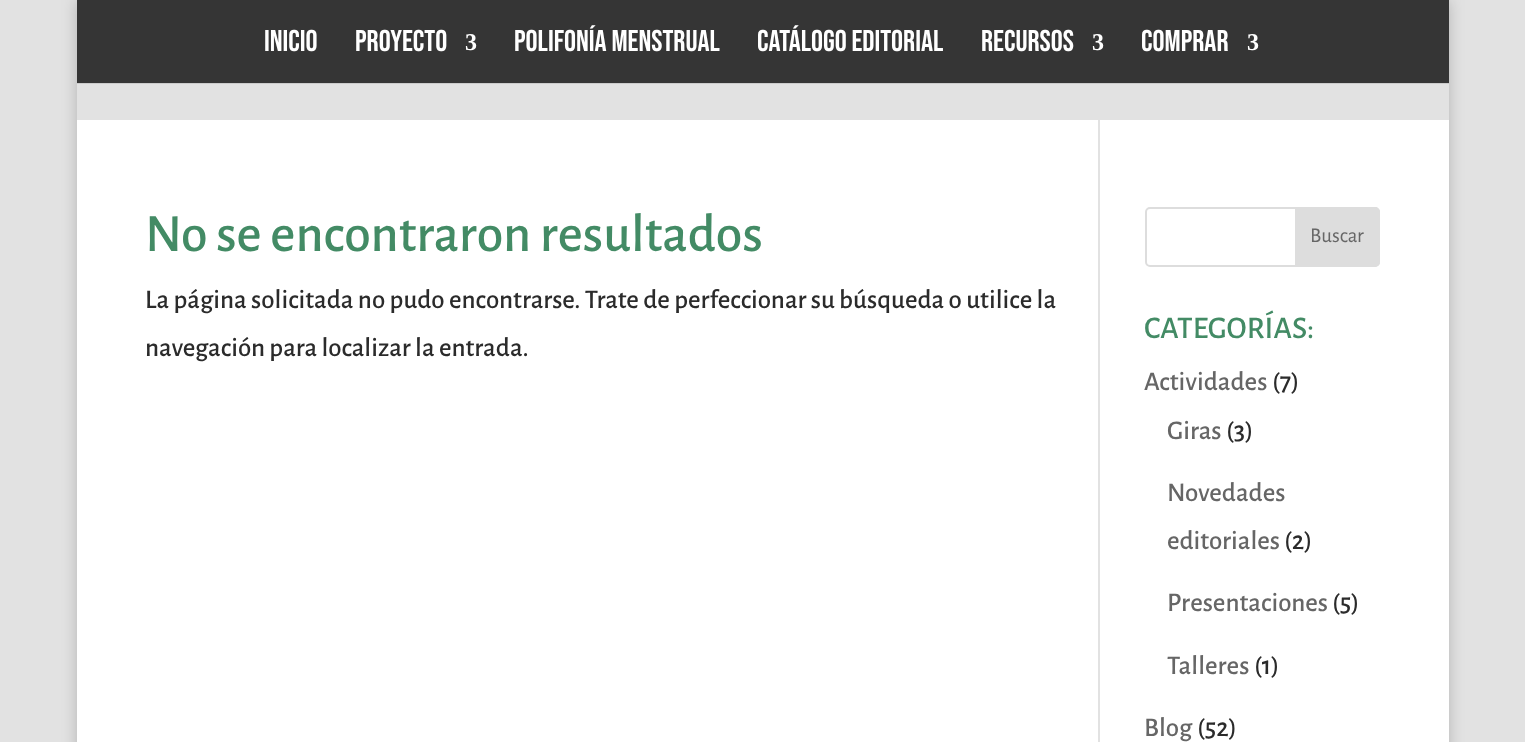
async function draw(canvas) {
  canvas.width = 1525
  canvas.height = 742
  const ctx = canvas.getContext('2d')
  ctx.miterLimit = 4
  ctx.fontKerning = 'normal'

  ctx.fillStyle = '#e2e2e2'
  ctx.fillRect(0, 0, 1525, 742)
  ctx.save()
  ctx.beginPath()
  ctx.moveTo(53, 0)
  ctx.lineTo(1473, 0)
  ctx.lineTo(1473, 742)
  ctx.lineTo(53, 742)
  ctx.closePath()
  ctx.moveTo(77, 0)
  ctx.lineTo(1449, 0)
  ctx.lineTo(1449, 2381)
  ctx.lineTo(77, 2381)
  ctx.closePath()
  ctx.clip('evenodd')
  ctx.fillStyle = '#00000033'
  ctx.filter = 'blur(7.5px)'
  ctx.beginPath()
  ctx.rect(77, 0, 1372, 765)
  ctx.fill()
  ctx.filter = 'none'
  ctx.restore()
  ctx.fillStyle = '#cbcbcb'
  ctx.fillRect(77, 83, 1372, 1)
  ctx.fillStyle = '#353535'
  ctx.fillRect(77, 0, 1372, 83)
  ctx.font = '30px Bebas Neue'
  ctx.fillStyle = '#fff'
  ctx.fillText('INICIO', 264, 51)
  ctx.fillText('PROYECTO', 355, 51)
  ctx.font = 'bold 24px Liberation Serif'
  ctx.fillText('3', 465, 50)
  ctx.font = '30px Bebas Neue'
  ctx.fillText('POLIFONÍA MENSTRUAL', 514, 51)
  ctx.fillText('CATÁLOGO EDITORIAL', 757, 51)
  ctx.fillText('RECURSOS', 981, 51)
  ctx.font = 'bold 24px Liberation Serif'
  ctx.fillText('3', 1092, 50)
  ctx.font = '30px Bebas Neue'
  ctx.fillText('COMPRAR', 1141, 51)
  ctx.font = 'bold 24px Liberation Serif'
  ctx.fillText('3', 1247, 50)
  ctx.fillRect(77, 120, 1372, 622)
  ctx.fillStyle = '#e2e2e2'
  ctx.fillRect(1098, 120, 2, 622)
  ctx.font = '500 54px Alegreya Sans'
  ctx.fillStyle = '#438b65'
  ctx.fillText('No se encontraron resultados', 145, 251)
  ctx.font = '500 27px Alegreya Sans'
  ctx.fillStyle = '#2b2b2b'
  ctx.fillText('La página solicitada no pudo encontrarse. Trate de perfeccionar su búsqueda o utilice la', 145, 308)
  ctx.fillText('navegación para localizar la entrada.', 145, 356)
  ctx.beginPath()
  ctx.roundRect(1146, 208, 233, 58, 4)
  ctx.strokeStyle = '#ddd'
  ctx.lineWidth = 2
  ctx.stroke()
  ctx.fillStyle = '#ddd'
  ctx.beginPath()
  ctx.roundRect(1296, 208, 83, 58, [0, 4, 4, 0])
  ctx.fill()
  ctx.stroke()
  ctx.font = '21px Alegreya Sans'
  ctx.fillStyle = '#666'
  ctx.fillText('Buscar', 1310, 242)
  ctx.font = '500 31.5px Alegreya Sans'
  ctx.fillStyle = '#438b65'
  ctx.fillText('CATEGORÍAS:', 1144, 338)
  ctx.font = '500 27px Alegreya Sans'
  ctx.fillStyle = '#666'
  ctx.fillText('Actividades', 1144, 390)
  ctx.fillStyle = '#2b2b2b'
  ctx.fillText('(7)', 1272, 390)
  ctx.fillStyle = '#666'
  ctx.fillText('Giras', 1167, 439)
  ctx.fillStyle = '#2b2b2b'
  ctx.fillText('(3)', 1226, 439)
  ctx.fillStyle = '#666'
  ctx.fillText('Novedades', 1167, 501)
  ctx.fillText('editoriales', 1167, 549)
  ctx.fillStyle = '#2b2b2b'
  ctx.fillText('(2)', 1284, 549)
  ctx.fillStyle = '#666'
  ctx.fillText('Presentaciones', 1167, 611)
  ctx.fillStyle = '#2b2b2b'
  ctx.fillText('(5)', 1332, 611)
  ctx.fillStyle = '#666'
  ctx.fillText('Talleres', 1167, 674)
  ctx.fillStyle = '#2b2b2b'
  ctx.fillText('(1)', 1254, 674)
  ctx.fillStyle = '#666'
  ctx.fillText('Blog', 1144, 736)
  ctx.fillStyle = '#2b2b2b'
  ctx.fillText('(52)', 1197, 736)
}

draw(document.querySelector('canvas'))
